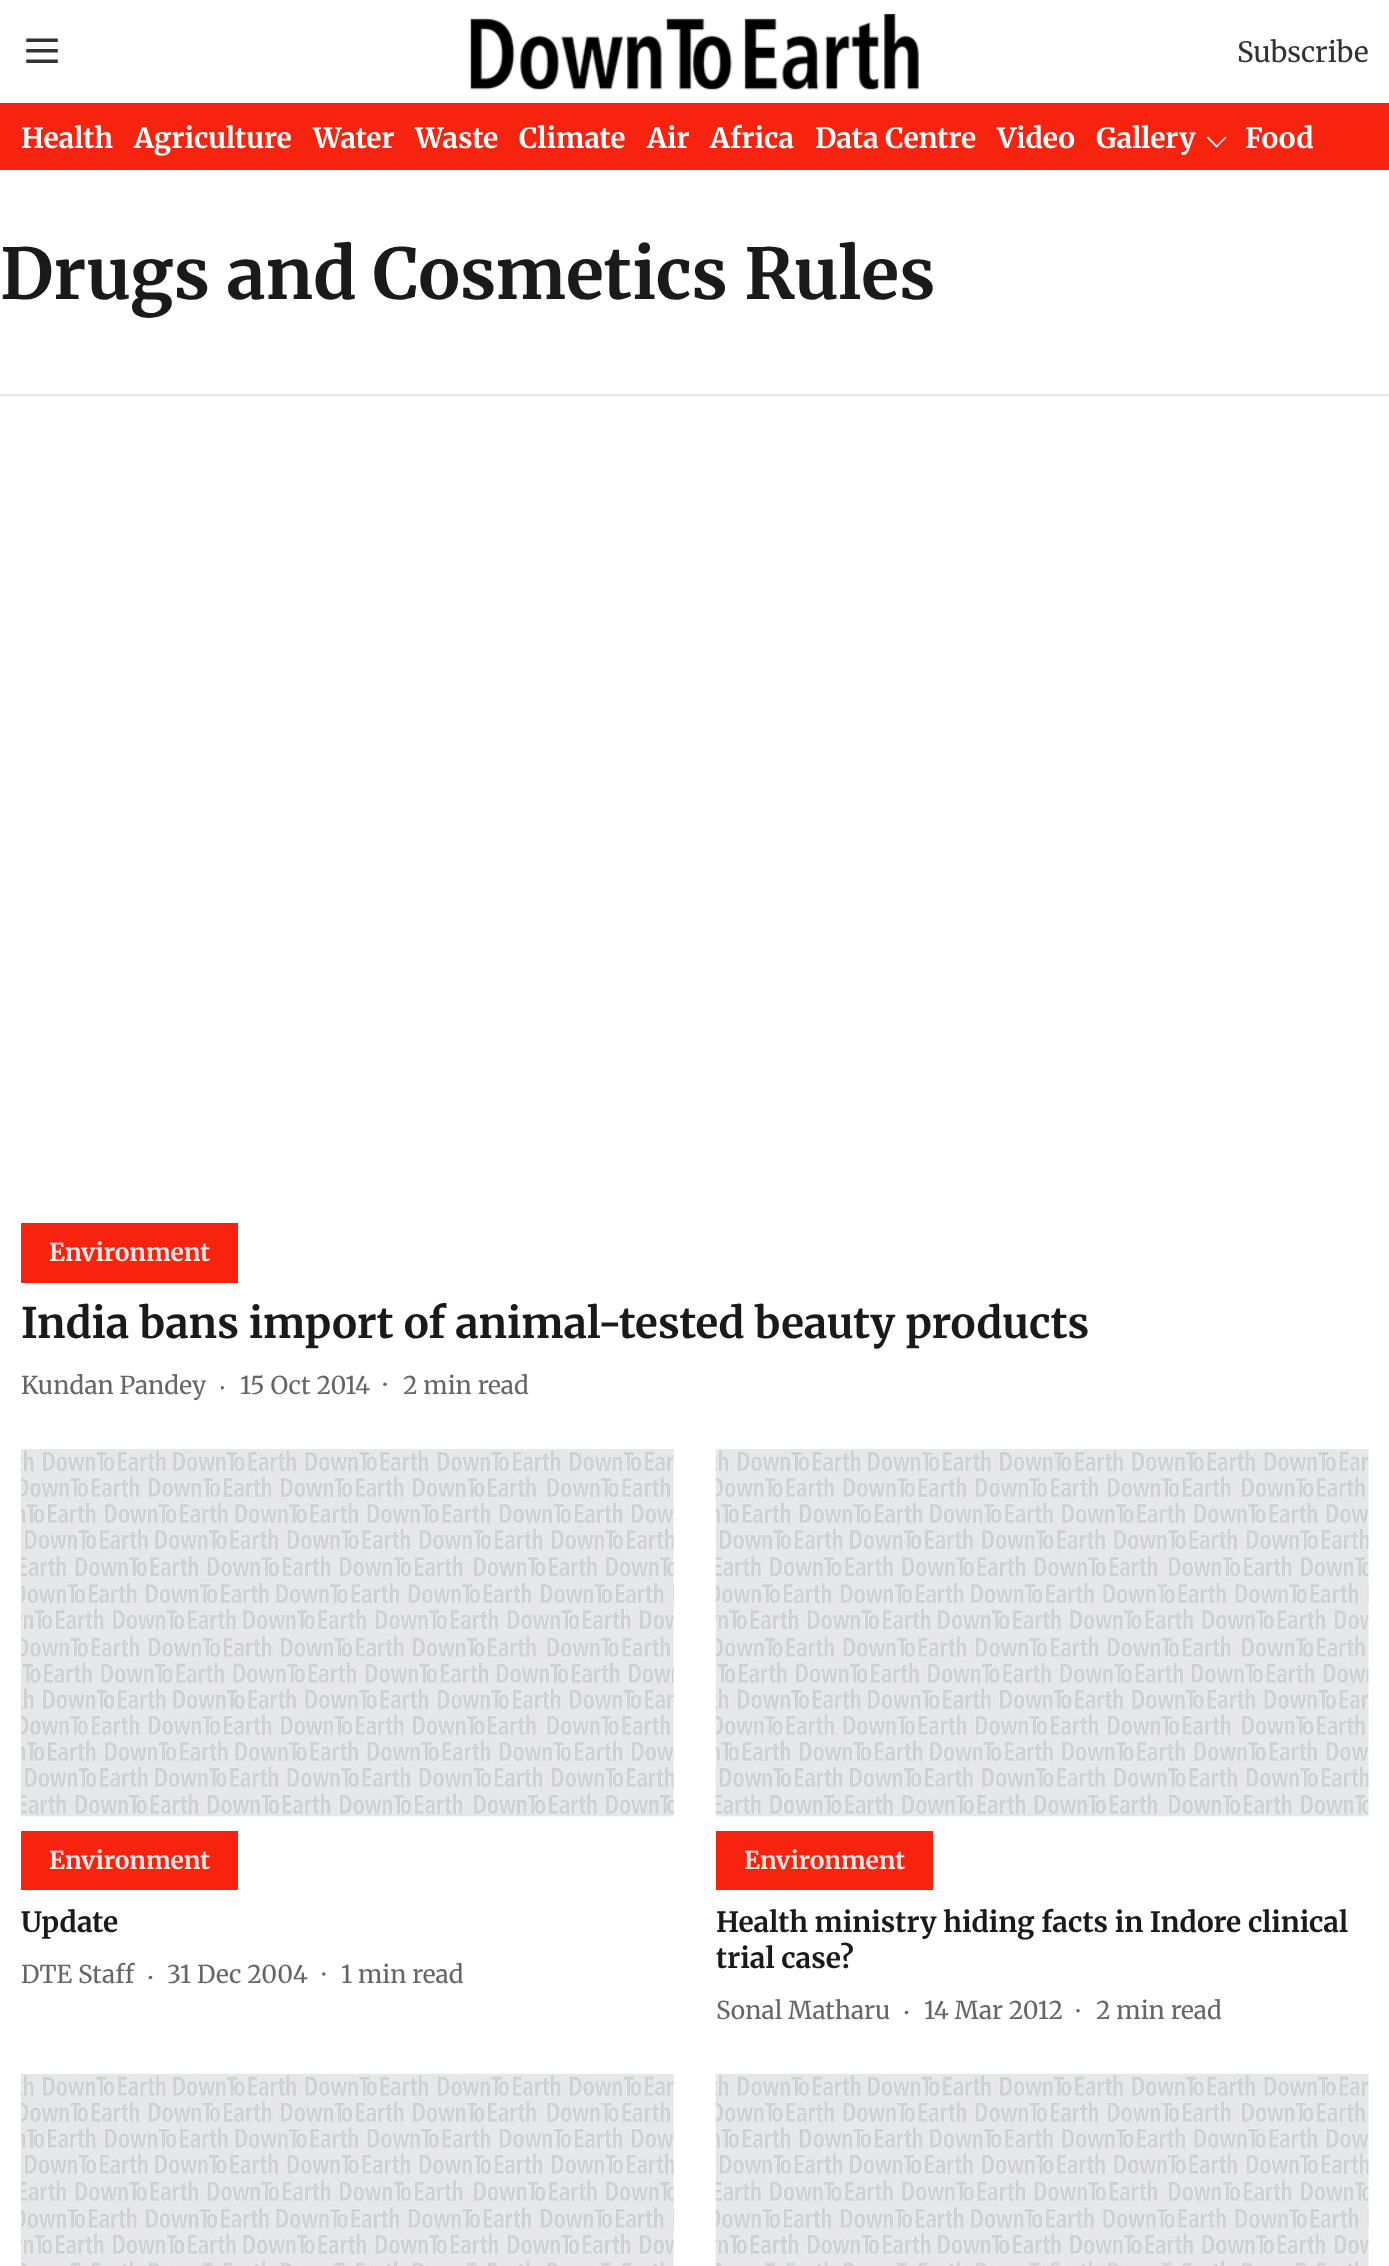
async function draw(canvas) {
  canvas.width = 1389
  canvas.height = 2266
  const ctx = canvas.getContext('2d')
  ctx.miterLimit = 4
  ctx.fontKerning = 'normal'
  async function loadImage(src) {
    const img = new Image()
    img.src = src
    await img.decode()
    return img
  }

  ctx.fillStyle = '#fff'
  ctx.fillRect(0, 0, 1389, 2266)
  ctx.drawImage(await loadImage('image0.png'), 26, 38, 32, 25)
  ctx.drawImage(await loadImage('image1.png'), 470, 14, 449, 76)
  ctx.font = '300 28px "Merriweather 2"'
  ctx.fillStyle = '#333'
  ctx.fillText('Subscribe', 1237, 62)
  ctx.fillStyle = '#f7230f'
  ctx.fillRect(0, 103, 1389, 67)
  ctx.font = '300 28px Merriweather'
  ctx.fillStyle = '#fff'
  ctx.fillText('Health', 21, 148)
  ctx.fillText('Agriculture', 134, 148)
  ctx.fillText('Water', 313, 148)
  ctx.fillText('Waste', 415, 148)
  ctx.fillText('Climate', 519, 148)
  ctx.fillText('Air', 647, 148)
  ctx.fillText('Africa', 710, 148)
  ctx.fillText('Data Centre', 815, 148)
  ctx.fillText('Video', 997, 148)
  ctx.fillText('Gallery', 1096, 148)
  ctx.beginPath()
  ctx.moveTo(1225.5, 136.5)
  ctx.lineTo(1226.5, 137.5)
  ctx.lineTo(1216.5, 147.5)
  ctx.lineTo(1215.5, 146.5)
  ctx.closePath()
  ctx.fill()
  ctx.beginPath()
  ctx.moveTo(1208, 136.5)
  ctx.lineTo(1218, 146.5)
  ctx.lineTo(1216.5, 147.5)
  ctx.lineTo(1206.5, 137.5)
  ctx.closePath()
  ctx.fill()
  ctx.fillText('Food', 1245, 148)
  ctx.fillStyle = '#e6e6e6'
  ctx.fillRect(0, 394, 1389, 2)
  ctx.font = '300 70px Merriweather'
  ctx.fillStyle = '#1a1a1a'
  ctx.fillText('Drugs and Cosmetics Rules', 0, 299)
  ctx.fillStyle = '#f7230f'
  ctx.fillRect(21, 1223, 217, 60)
  ctx.font = '300 24.5px Merriweather'
  ctx.fillStyle = '#fee9e7'
  ctx.fillText('Environment', 49, 1261)
  ctx.font = '300 42px Merriweather'
  ctx.fillStyle = '#1a1a1a'
  ctx.fillText('India bans import of animal-tested beauty products', 21, 1338)
  ctx.font = '300 24.5px "Merriweather 2"'
  ctx.fillStyle = '#666'
  ctx.fillText('Kundan Pandey', 21, 1394)
  ctx.save()
  ctx.beginPath()
  ctx.rect(221, 1386, 5, 5)
  ctx.clip()
  ctx.beginPath()
  ctx.arc(222.2, 1387.8, 1.8, 0, 2 * Math.PI)
  ctx.fill()
  ctx.restore()
  ctx.fillText('15 Oct 2014', 240, 1394)
  ctx.beginPath()
  ctx.arc(385, 1384.2, 1.8, 0, 2 * Math.PI)
  ctx.fill()
  ctx.fillText('2 min read', 403, 1394)
  ctx.drawImage(await loadImage('image2.png'), 21, 1449, 653, 368)
  ctx.fillStyle = '#f7230f'
  ctx.fillRect(21, 1831, 217, 59)
  ctx.font = '300 24.5px Merriweather'
  ctx.fillStyle = '#fee9e7'
  ctx.fillText('Environment', 49, 1869)
  ctx.font = '300 28px Merriweather'
  ctx.fillStyle = '#1a1a1a'
  ctx.fillText('Update', 21, 1932)
  ctx.font = '300 24.5px "Merriweather 2"'
  ctx.fillStyle = '#666'
  ctx.fillText('DTE Staff', 21, 1983)
  ctx.beginPath()
  ctx.arc(150.5, 1977.5, 1.8, 0, 2 * Math.PI)
  ctx.fill()
  ctx.fillText('31 Dec 2004', 167, 1983)
  ctx.beginPath()
  ctx.arc(323.8, 1974, 1.8, 0, 2 * Math.PI)
  ctx.fill()
  ctx.fillText('1 min read', 341, 1983)
  ctx.drawImage(await loadImage('image3.png'), 715, 1449, 654, 368)
  ctx.fillStyle = '#f7230f'
  ctx.fillRect(716, 1831, 217, 59)
  ctx.font = '300 24.5px Merriweather'
  ctx.fillStyle = '#fee9e7'
  ctx.fillText('Environment', 744, 1869)
  ctx.font = '300 28px Merriweather'
  ctx.fillStyle = '#1a1a1a'
  ctx.fillText('Health ministry hiding facts in Indore clinical', 716, 1932)
  ctx.fillText('trial case?', 716, 1968)
  ctx.font = '300 24.5px "Merriweather 2"'
  ctx.fillStyle = '#666'
  ctx.fillText('Sonal Matharu', 716, 2019)
  ctx.beginPath()
  ctx.arc(906.5, 2012.5, 1.8, 0, 2 * Math.PI)
  ctx.fill()
  ctx.fillText('14 Mar 2012', 924, 2019)
  ctx.beginPath()
  ctx.arc(1078, 2010.8, 1.8, 0, 2 * Math.PI)
  ctx.fill()
  ctx.fillText('2 min read', 1096, 2019)
  ctx.drawImage(await loadImage('image4.png'), 21, 2073, 653, 193)
  ctx.drawImage(await loadImage('image5.png'), 715, 2073, 654, 193)
}

draw(document.querySelector('canvas'))
